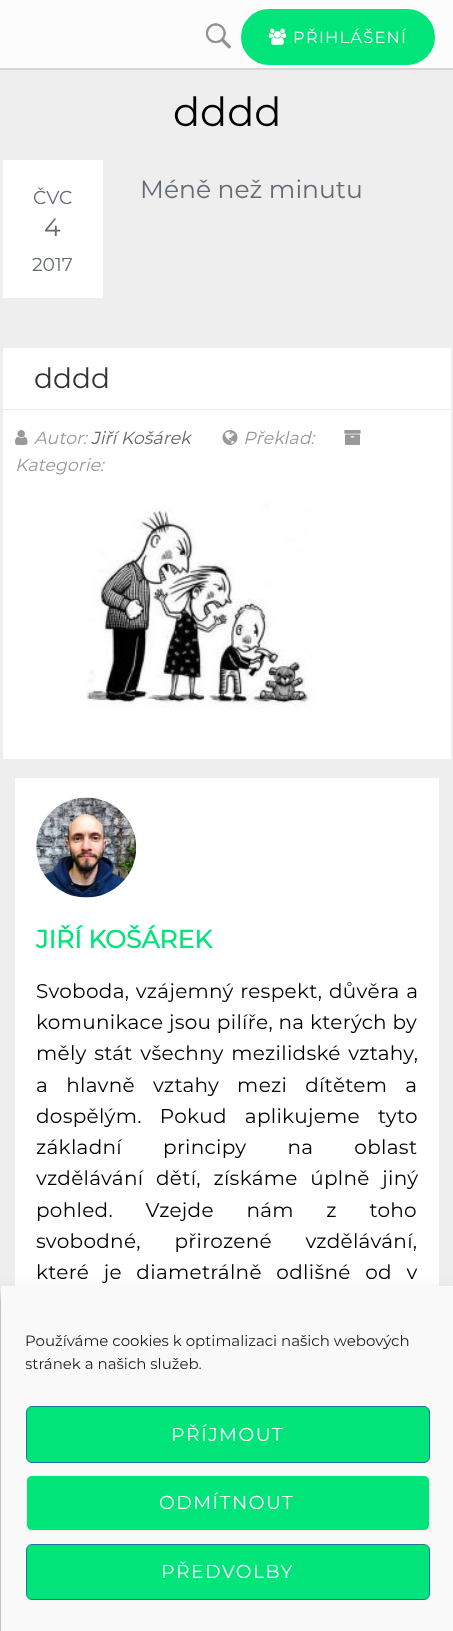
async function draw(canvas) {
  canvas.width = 453
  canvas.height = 1631
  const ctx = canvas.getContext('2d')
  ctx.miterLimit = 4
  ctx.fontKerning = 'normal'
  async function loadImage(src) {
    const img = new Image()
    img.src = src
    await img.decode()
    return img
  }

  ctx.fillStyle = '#eee'
  ctx.fillRect(0, 0, 453, 1631)
  ctx.fillStyle = '#d6d6d6'
  ctx.beginPath()
  ctx.moveTo(0, 68)
  ctx.lineTo(0, 70)
  ctx.lineTo(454, 70)
  ctx.lineTo(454, -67)
  ctx.lineTo(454, 68)
  ctx.closePath()
  ctx.fill()
  ctx.fillStyle = '#fcfcfc'
  ctx.fillRect(0, 0, 453, 68)
  ctx.drawImage(await loadImage('image0.png'), 206, 23, 25, 26)
  ctx.fillStyle = '#01e47a'
  ctx.beginPath()
  ctx.roundRect(242.5, 10.5, 191, 53, 26.5)
  ctx.fill()
  ctx.strokeStyle = '#01e47a'
  ctx.lineWidth = 3
  ctx.stroke()
  ctx.drawImage(await loadImage('image1.png'), 268, 28, 19, 17)
  ctx.letterSpacing = '1.25px'
  ctx.font = '100 16.25px Montserrat'
  ctx.fillStyle = '#fff'
  ctx.fillText('PŘIHLÁŠENÍ', 293, 43)
  ctx.letterSpacing = '0px'
  ctx.font = '100 40px Montserrat'
  ctx.fillStyle = '#000'
  ctx.fillText('dddd', 173, 126)
  ctx.fillStyle = '#fff'
  ctx.fillRect(3, 160, 100, 138)
  ctx.font = '100 18.75px Montserrat'
  ctx.fillStyle = '#646a72'
  ctx.fillText('ČVC', 33, 204)
  ctx.font = '100 25px Montserrat'
  ctx.fillText('4', 44, 236)
  ctx.font = '100 18.75px Montserrat'
  ctx.fillText('2017', 32, 271)
  ctx.font = '100 25px Montserrat'
  ctx.fillText('Méně než minutu', 140, 198)
  ctx.fillStyle = '#fff'
  ctx.fillRect(3, 348, 448, 61)
  ctx.fillStyle = '#eceae4'
  ctx.fillRect(3, 409, 448, 1)
  ctx.font = '100 28px Montserrat'
  ctx.fillStyle = '#333'
  ctx.fillText('dddd', 34, 388)
  ctx.fillStyle = '#fff'
  ctx.fillRect(3, 410, 448, 349)
  ctx.drawImage(await loadImage('image2.png'), 15, 430, 13, 15)
  ctx.font = 'italic 100 17.5px Montserrat'
  ctx.fillStyle = '#999'
  ctx.fillText('Autor:', 34, 444)
  ctx.fillStyle = '#666'
  ctx.fillText('Jiří Košárek', 91, 444)
  ctx.drawImage(await loadImage('image3.png'), 222, 430, 16, 15)
  ctx.fillStyle = '#999'
  ctx.fillText('Překlad:', 243, 444)
  ctx.drawImage(await loadImage('image4.png'), 344, 430, 17, 15)
  ctx.fillText('Kategorie:', 15, 471)
  ctx.drawImage(await loadImage('image5.png'), 86, 503, 229, 206)
  ctx.fillStyle = '#fff'
  ctx.fillRect(15, 778, 424, 508)
  ctx.drawImage(await loadImage('image6.png'), 36, 797, 101, 101)
  ctx.font = 'bold 25px Montserrat'
  ctx.fillStyle = '#01e47a'
  ctx.fillText('JIŘÍ KOŠÁREK', 36, 948)
  ctx.letterSpacing = '0.3px'
  ctx.wordSpacing = '1px'
  ctx.font = '100 20px Montserrat'
  ctx.fillStyle = '#000'
  ctx.fillText('Svoboda, vzájemný respekt, důvěra a', 36, 998)
  ctx.wordSpacing = '0px'
  ctx.fillText('komunikace jsou pilíře, na kterých by', 36, 1029)
  ctx.wordSpacing = '2px'
  ctx.fillText('měly stát všechny mezilidské vztahy,', 36, 1060)
  ctx.wordSpacing = '12.5px'
  ctx.fillText('a hlavně vztahy mezi dítětem a', 36, 1092)
  ctx.fillText('dospělým. Pokud aplikujeme tyto', 36, 1123)
  ctx.wordSpacing = '35.5px'
  ctx.fillText('základní principy na oblast', 36, 1154)
  ctx.wordSpacing = '7px'
  ctx.fillText('vzdělávání dětí, získáme úplně jiný', 36, 1185)
  ctx.wordSpacing = '27px'
  ctx.fillText('pohled. Vzejde nám z toho', 36, 1217)
  ctx.wordSpacing = '28px'
  ctx.fillText('svobodné, přirozené vzdělávání,', 36, 1248)
  ctx.wordSpacing = '9px'
  ctx.fillText('které je diametrálně odlišné od v', 36, 1279)
  ctx.fillStyle = '#0000003b'
  ctx.filter = 'blur(4px)'
  ctx.beginPath()
  ctx.rect(1, 1294, 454, 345)
  ctx.fill()
  ctx.filter = 'none'
  ctx.fillStyle = '#00000030'
  ctx.filter = 'blur(12.5px)'
  ctx.beginPath()
  ctx.rect(1, 1299, 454, 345)
  ctx.fill()
  ctx.filter = 'none'
  ctx.fillStyle = '#f9f9f9'
  ctx.fillRect(1, 1286, 452, 345)
  ctx.letterSpacing = '0px'
  ctx.wordSpacing = '0px'
  ctx.font = '100 15px Montserrat'
  ctx.fillStyle = '#191e23'
  ctx.fillText('Používáme cookies k optimalizaci našich webových', 25, 1346)
  ctx.save()
  ctx.beginPath()
  ctx.rect(26, 1330, 404, 51)
  ctx.clip()
  ctx.fillText('stránek a našich služeb.', 25, 1369)
  ctx.restore()
  ctx.fillStyle = '#01e47a'
  ctx.beginPath()
  ctx.roundRect(26.5, 1406.5, 403, 56, 5.5)
  ctx.fill()
  ctx.strokeStyle = '#21759b'
  ctx.lineWidth = 1
  ctx.stroke()
  ctx.letterSpacing = '1.5px'
  ctx.font = '100 18.75px Montserrat'
  ctx.fillStyle = '#fff'
  ctx.fillText('PŘÍJMOUT', 171, 1441)
  ctx.fillStyle = '#01e47a'
  ctx.beginPath()
  ctx.roundRect(26.5, 1475.5, 403, 55, 5.5)
  ctx.fill()
  ctx.strokeStyle = '#f1f1f1'
  ctx.stroke()
  ctx.fillStyle = '#fff'
  ctx.fillText('ODMÍTNOUT', 159, 1509)
  ctx.fillStyle = '#01e47a'
  ctx.beginPath()
  ctx.roundRect(26.5, 1544.5, 403, 55, 5.5)
  ctx.fill()
  ctx.strokeStyle = '#21759b'
  ctx.stroke()
  ctx.fillStyle = '#fff'
  ctx.fillText('PŘEDVOLBY', 161, 1578)
}

draw(document.querySelector('canvas'))
